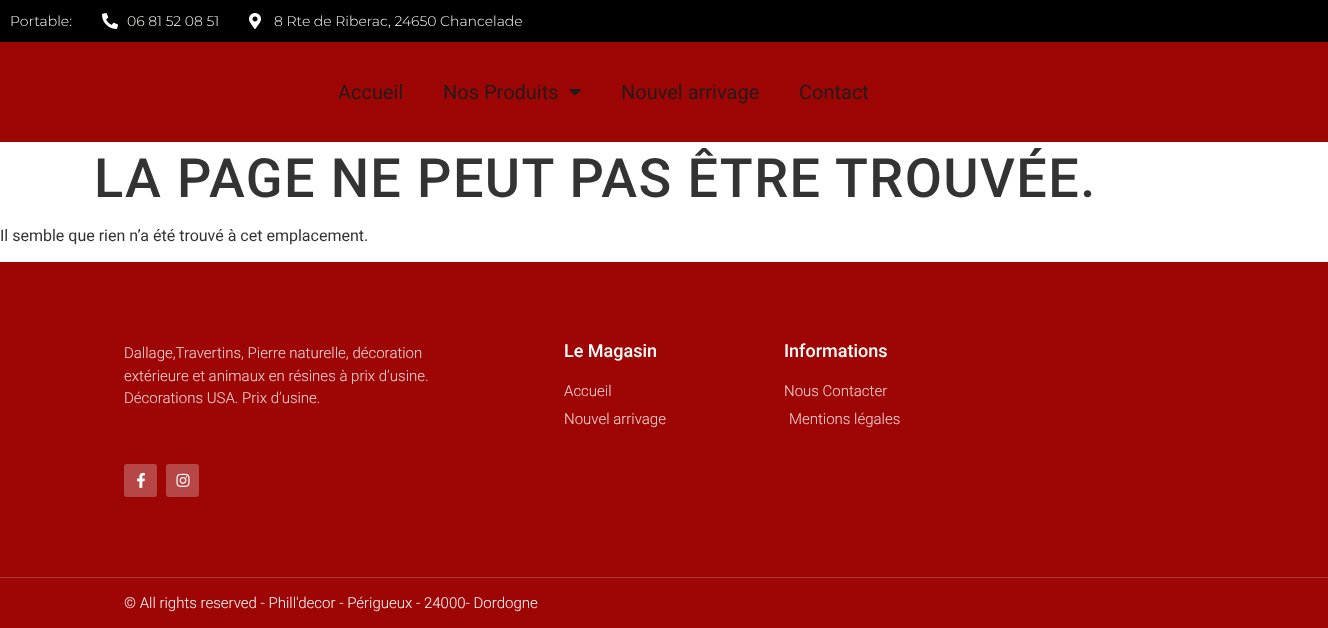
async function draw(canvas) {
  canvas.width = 1328
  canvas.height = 628
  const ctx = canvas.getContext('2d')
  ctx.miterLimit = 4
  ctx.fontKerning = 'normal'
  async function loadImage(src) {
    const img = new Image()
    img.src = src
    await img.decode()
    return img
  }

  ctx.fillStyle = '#fff'
  ctx.fillRect(0, 0, 1328, 628)
  ctx.fillStyle = '#000'
  ctx.fillRect(0, 0, 1328, 42)
  ctx.font = '300 14px Montserrat'
  ctx.fillStyle = '#fffefb'
  ctx.fillText('Portable:', 10, 26)
  ctx.drawImage(await loadImage('image0.png'), 102, 13, 16, 16)
  ctx.fillText('06 81 52 08 51', 127, 26)
  ctx.drawImage(await loadImage('image1.png'), 249, 13, 12, 16)
  ctx.fillText('8 Rte de Riberac, 24650 Chancelade', 274, 26)
  ctx.fillStyle = '#9e0606'
  ctx.fillRect(0, 42, 1328, 100)
  ctx.font = '20px Roboto'
  ctx.fillStyle = '#221b19'
  ctx.fillText('Accueil', 338, 99)
  ctx.fillText('Nos Produits', 443, 99)
  ctx.drawImage(await loadImage('image2.png'), 569, 89, 12, 7)
  ctx.fillText('Nouvel arrivage', 621, 99)
  ctx.fillText('Contact', 799, 99)
  ctx.letterSpacing = '1.4px'
  ctx.font = '500 54px Roboto'
  ctx.fillStyle = '#333'
  ctx.fillText('LA PAGE NE PEUT PAS ÊTRE TROUVÉE.', 94, 197)
  ctx.letterSpacing = '0px'
  ctx.font = '16px Roboto'
  ctx.fillText('Il semble que rien n’a été trouvé à cet emplacement.', 0, 241)
  ctx.fillStyle = '#9e0606'
  ctx.fillRect(0, 262, 1328, 315)
  ctx.font = '300 15px Roboto'
  ctx.fillStyle = '#f3dada'
  ctx.fillText('Dallage,Travertins, Pierre naturelle, décoration', 124, 358)
  ctx.fillText('extérieure et animaux en résines à prix d’usine.', 124, 381)
  ctx.fillText('Décorations USA. Prix d’usine.', 124, 403)
  ctx.fillStyle = '#b74747'
  ctx.beginPath()
  ctx.roundRect(124, 464, 33, 33, 3)
  ctx.fill()
  ctx.drawImage(await loadImage('image3.png'), 137, 472, 8, 16)
  ctx.beginPath()
  ctx.roundRect(166, 464, 33, 33, 3)
  ctx.fill()
  ctx.drawImage(await loadImage('image4.png'), 176, 473, 14, 14)
  ctx.font = '500 18px Roboto'
  ctx.fillStyle = '#fffefb'
  ctx.fillText('Le Magasin', 564, 357)
  ctx.font = '300 15px Roboto'
  ctx.fillStyle = '#f3dada'
  ctx.fillText('Accueil', 564, 396)
  ctx.fillText('Nouvel arrivage', 564, 424)
  ctx.font = '500 18px Roboto'
  ctx.fillStyle = '#fffefb'
  ctx.fillText('Informations', 784, 357)
  ctx.font = '300 15px Roboto'
  ctx.fillStyle = '#f3dada'
  ctx.fillText('Nous Contacter', 784, 396)
  ctx.fillText('Mentions légales', 789, 424)
  ctx.fillStyle = '#9e0606'
  ctx.fillRect(0, 578, 1328, 50)
  ctx.fillStyle = '#b03535'
  ctx.fillRect(0, 577, 1328, 1)
  ctx.fillStyle = '#fffefb'
  ctx.fillText('© All rights reserved - Phill\'decor - Périgueux - 24000- Dordogne', 124, 608)
}

draw(document.querySelector('canvas'))
